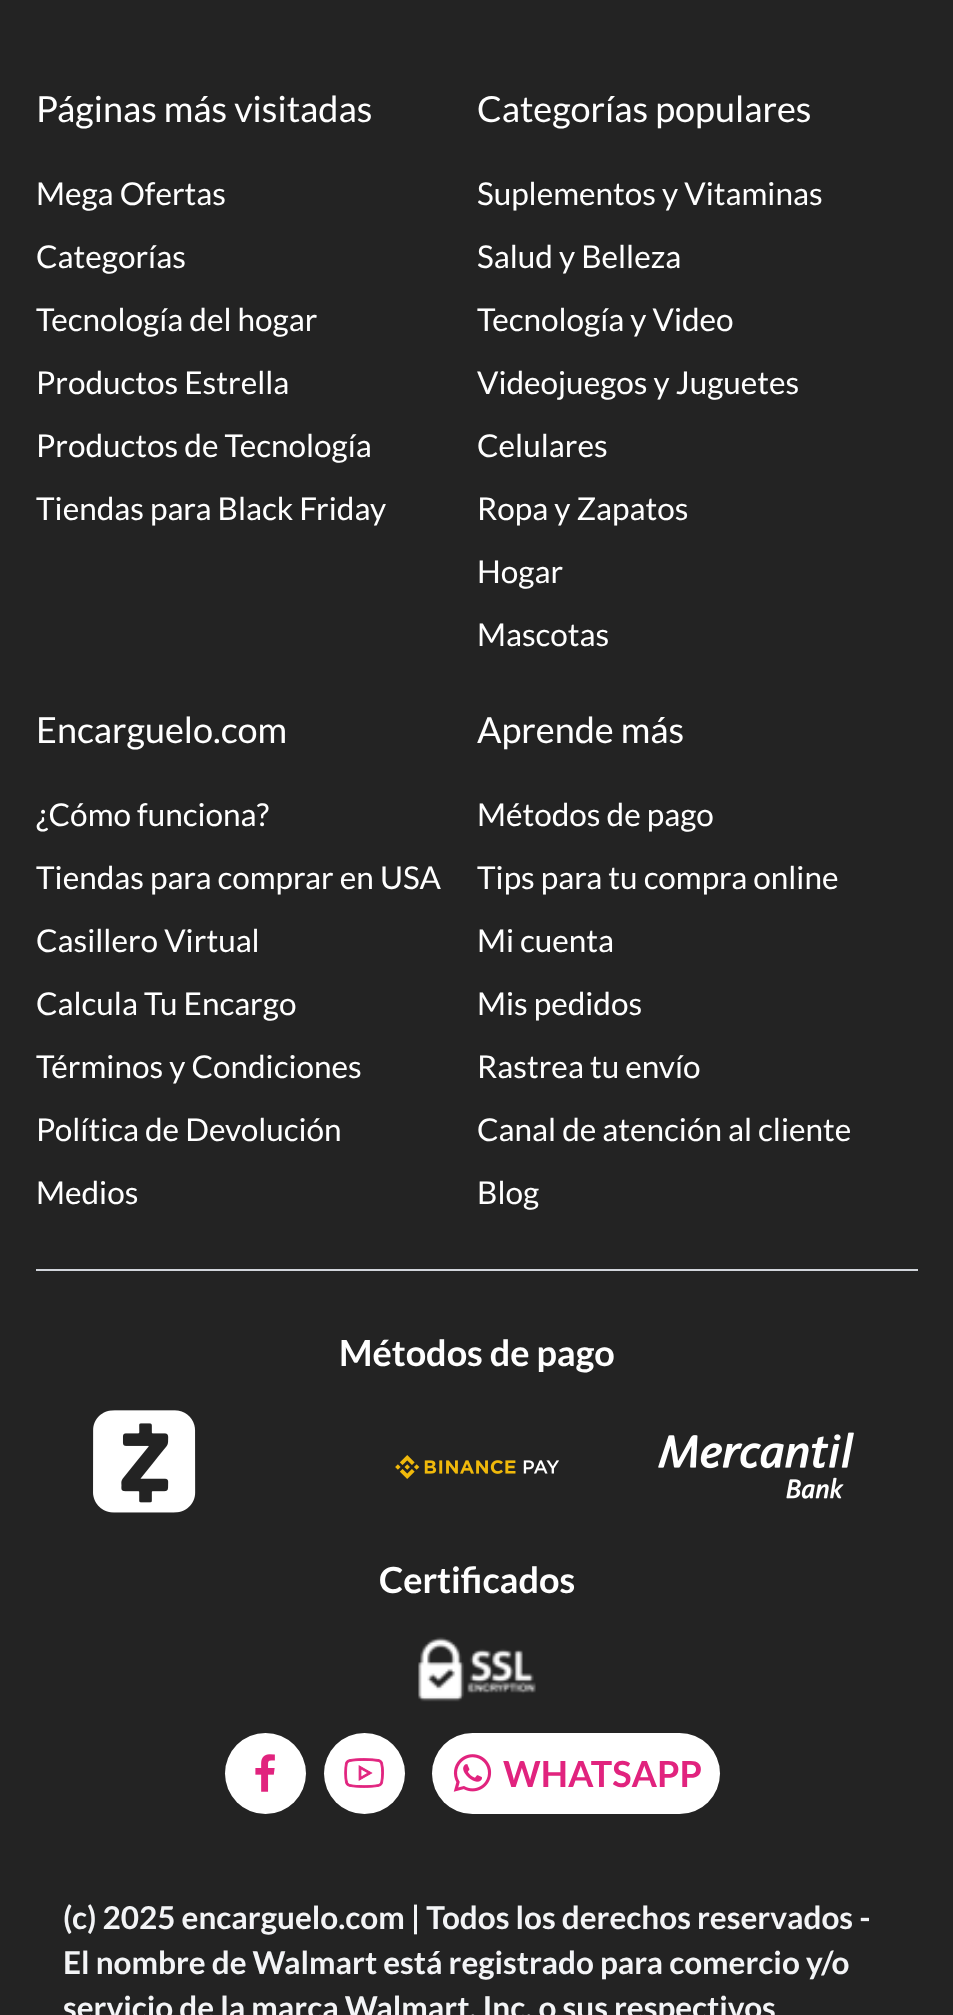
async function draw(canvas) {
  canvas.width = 953
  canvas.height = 2015
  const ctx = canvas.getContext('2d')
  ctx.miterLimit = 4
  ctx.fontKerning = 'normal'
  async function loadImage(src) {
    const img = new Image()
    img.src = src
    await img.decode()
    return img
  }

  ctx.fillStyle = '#232323'
  ctx.fillRect(0, 0, 953, 2015)
  ctx.font = '36px Lato'
  ctx.fillStyle = '#fff'
  ctx.fillText('Páginas más visitadas', 36, 122)
  ctx.font = '31.5px Lato'
  ctx.fillText('Mega Ofertas', 36, 205)
  ctx.fillText('Categorías', 36, 268)
  ctx.fillText('Tecnología del hogar', 36, 331)
  ctx.fillText('Productos Estrella', 36, 394)
  ctx.fillText('Productos de Tecnología', 36, 457)
  ctx.fillText('Tiendas para Black Friday', 36, 520)
  ctx.font = '36px Lato'
  ctx.fillText('Categorías populares', 477, 122)
  ctx.font = '31.5px Lato'
  ctx.fillText('Suplementos y Vitaminas', 477, 205)
  ctx.fillText('Salud y Belleza', 477, 268)
  ctx.fillText('Tecnología y Video', 477, 331)
  ctx.fillText('Videojuegos y Juguetes', 477, 394)
  ctx.fillText('Celulares', 477, 457)
  ctx.fillText('Ropa y Zapatos', 477, 520)
  ctx.fillText('Hogar', 477, 583)
  ctx.fillText('Mascotas', 477, 646)
  ctx.font = '36px Lato'
  ctx.fillText('Encarguelo.com', 36, 743)
  ctx.font = '31.5px Lato'
  ctx.fillText('¿Cómo funciona?', 36, 826)
  ctx.fillText('Tiendas para comprar en USA', 36, 889)
  ctx.fillText('Casillero Virtual', 36, 952)
  ctx.fillText('Calcula Tu Encargo', 36, 1015)
  ctx.fillText('Términos y Condiciones', 36, 1078)
  ctx.fillText('Política de Devolución', 36, 1141)
  ctx.fillText('Medios', 36, 1204)
  ctx.font = '36px Lato'
  ctx.fillText('Aprende más', 477, 743)
  ctx.font = '31.5px Lato'
  ctx.fillText('Métodos de pago', 477, 826)
  ctx.fillText('Tips para tu compra online', 477, 889)
  ctx.fillText('Mi cuenta', 477, 952)
  ctx.fillText('Mis pedidos', 477, 1015)
  ctx.fillText('Rastrea tu envío', 477, 1078)
  ctx.fillText('Canal de atención al cliente', 477, 1141)
  ctx.fillText('Blog', 477, 1204)
  ctx.fillStyle = '#d1d5db'
  ctx.fillRect(36, 1269, 882, 2)
  ctx.font = 'bold 36px Lato'
  ctx.fillStyle = '#fff'
  ctx.fillText('Métodos de pago', 339, 1366)
  ctx.drawImage(await loadImage('image0.png'), 93, 1410, 103, 103)
  ctx.drawImage(await loadImage('image1.png'), 395, 1455, 165, 24)
  ctx.drawImage(await loadImage('image2.png'), 658, 1432, 196, 67)
  ctx.fillText('Certificados', 379, 1593)
  ctx.drawImage(await loadImage('image3.png'), 418, 1637, 118, 65)
  ctx.beginPath()
  ctx.arc(265.5, 1773.5, 40.5, 0, 2 * Math.PI)
  ctx.fill()
  ctx.drawImage(await loadImage('image4.png'), 255, 1754, 20, 38)
  ctx.beginPath()
  ctx.arc(364.5, 1773.5, 40.5, 0, 2 * Math.PI)
  ctx.fill()
  ctx.drawImage(await loadImage('image5.png'), 344, 1758, 40, 30)
  ctx.beginPath()
  ctx.roundRect(432, 1733, 288, 81, 40.5)
  ctx.fill()
  ctx.drawImage(await loadImage('image6.png'), 453, 1754, 39, 38)
  ctx.fillStyle = '#e1237e'
  ctx.fillText('WHATSAPP', 503, 1787)
  ctx.font = 'bold 31.5px Lato'
  ctx.fillStyle = '#f3f4f6'
  ctx.fillText('(c) 2025 encarguelo.com | Todos los derechos reservados -', 63, 1929)
  ctx.fillText('El nombre de Walmart está registrado para comercio y/o', 63, 1974)
  ctx.fillText('servicio de la marca Walmart, Inc. o sus respectivos', 63, 2019)
}

draw(document.querySelector('canvas'))
